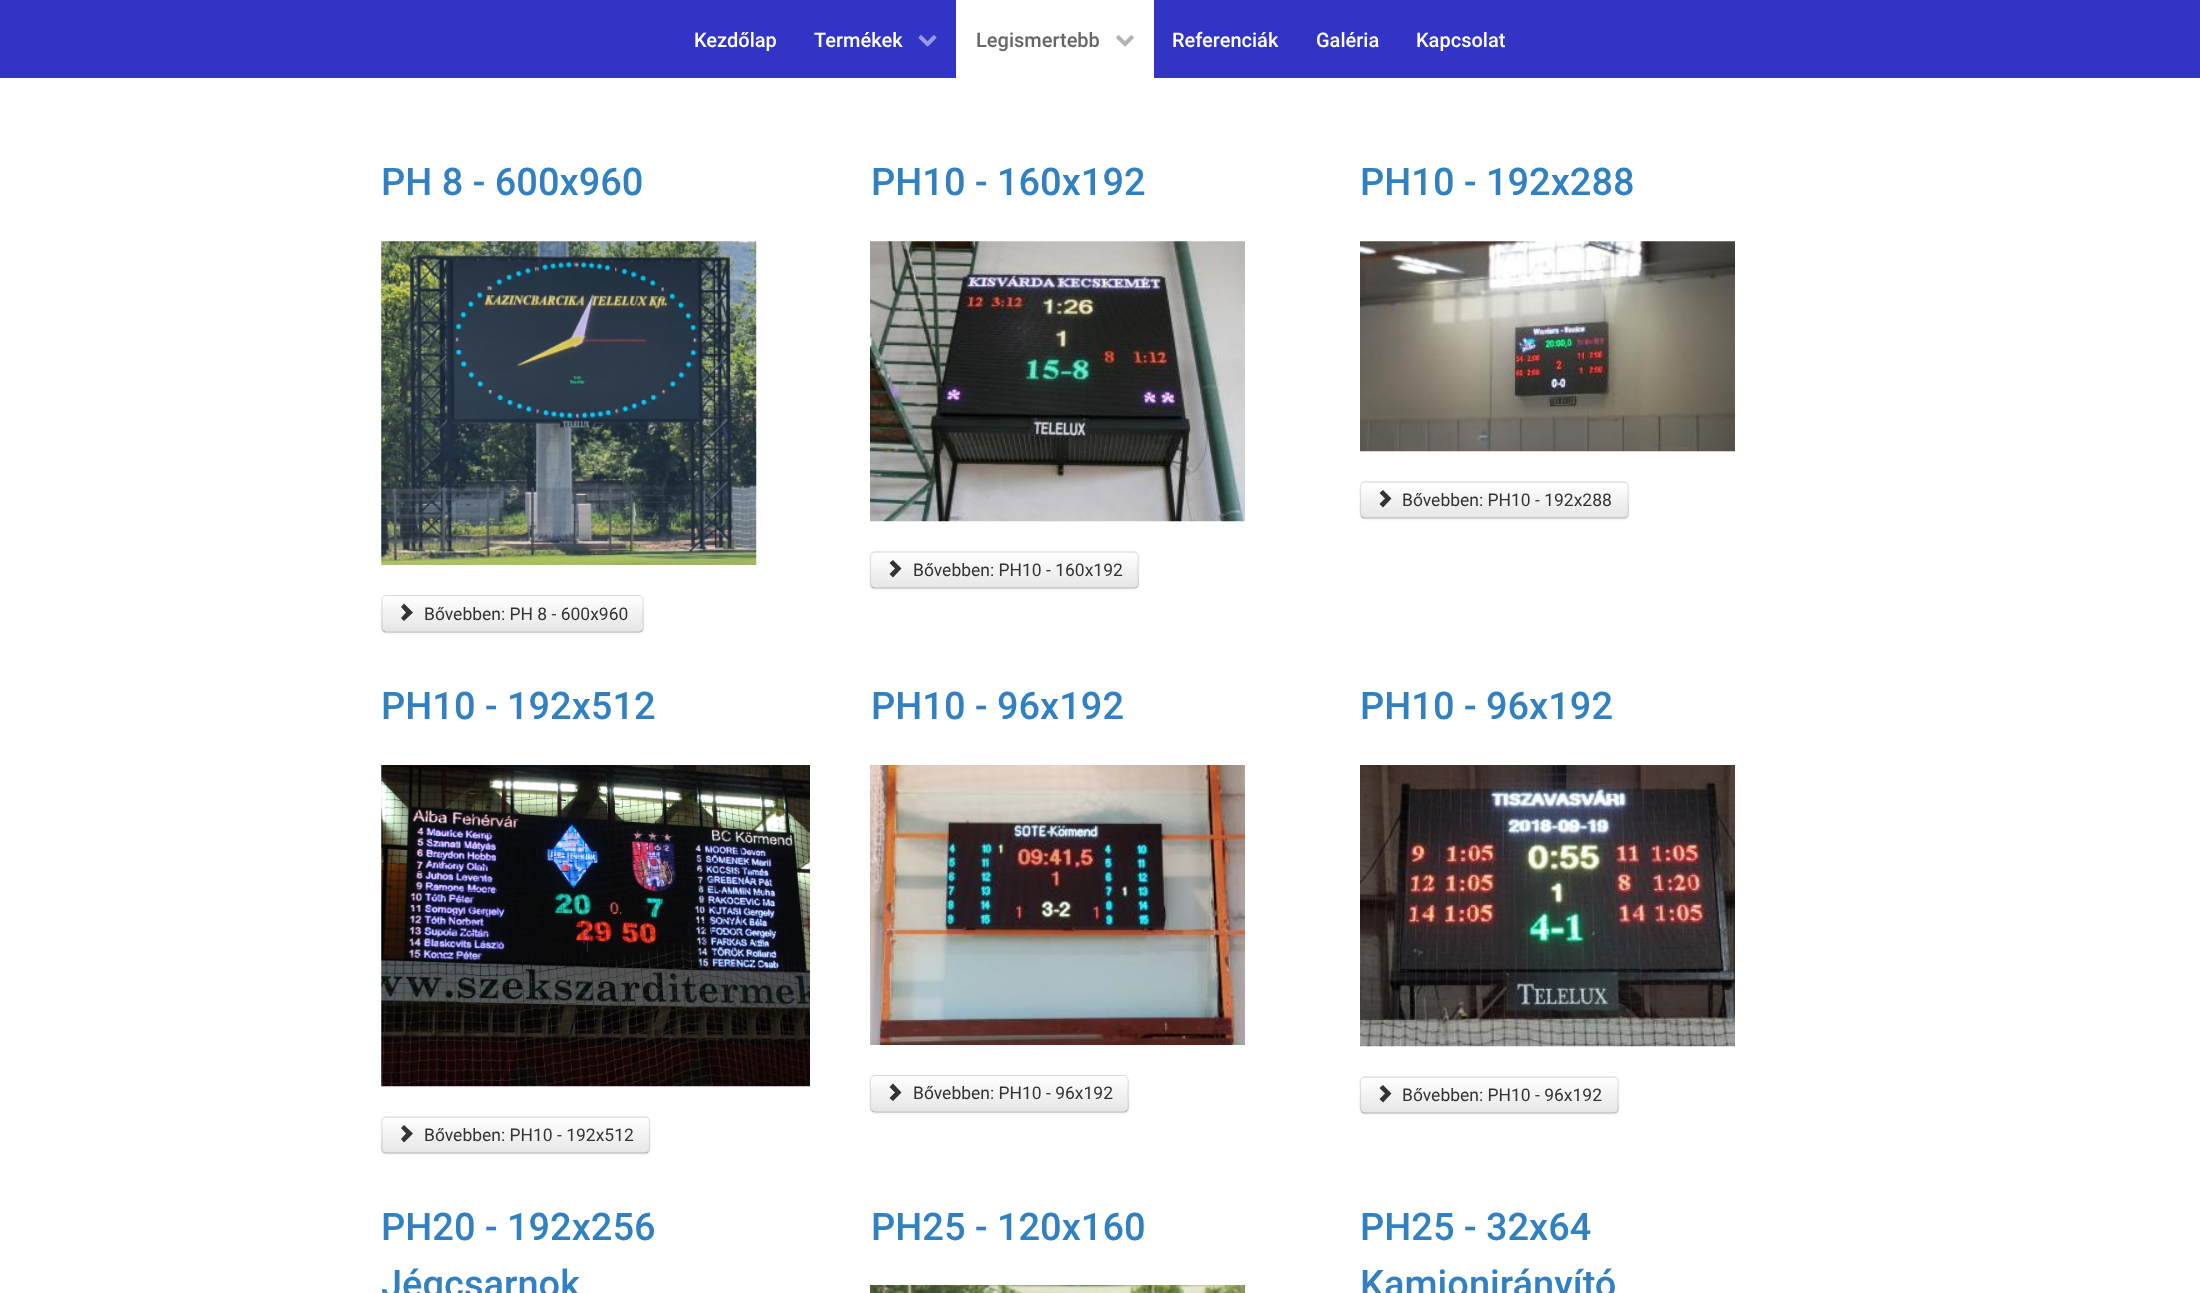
async function draw(canvas) {
  canvas.width = 2200
  canvas.height = 1293
  const ctx = canvas.getContext('2d')
  ctx.miterLimit = 4
  ctx.fontKerning = 'normal'
  async function loadImage(src) {
    const img = new Image()
    img.src = src
    await img.decode()
    return img
  }
  let gradient

  ctx.fillStyle = '#fff'
  ctx.fillRect(0, 0, 2200, 1293)
  ctx.fillStyle = '#3134c4'
  ctx.fillRect(0, 0, 2200, 78)
  ctx.font = '500 20px Roboto'
  ctx.fillStyle = '#fff'
  ctx.fillText('Kezdőlap', 694, 47)
  ctx.fillText('Termékek', 814, 47)
  ctx.drawImage(await loadImage('image0.png'), 918, 35, 19, 12)
  ctx.fillRect(956, 0, 198, 78)
  ctx.fillStyle = '#666'
  ctx.fillText('Legismertebb', 976, 47)
  ctx.drawImage(await loadImage('image1.png'), 1116, 35, 18, 12)
  ctx.fillStyle = '#fff'
  ctx.fillText('Referenciák', 1172, 47)
  ctx.fillText('Galéria', 1316, 47)
  ctx.fillText('Kapcsolat', 1416, 47)
  ctx.font = '500 38px Roboto'
  ctx.fillStyle = '#3180c2'
  ctx.fillText('PH 8 - 600x960', 381, 195)
  ctx.drawImage(await loadImage('image2.png'), 381, 241, 376, 324)
  ctx.fillStyle = '#0000000d'
  ctx.filter = 'blur(1px)'
  ctx.beginPath()
  ctx.roundRect(381, 596, 263, 38, 5)
  ctx.fill()
  ctx.filter = 'none'
  ctx.fillStyle = '#f5f5f5'
  ctx.beginPath()
  ctx.roundRect(381, 595, 263, 38, 5)
  ctx.fill()
  ctx.save()
  ctx.beginPath()
  ctx.roundRect(381, 595, 263, 38, 5)
  ctx.clip()
  gradient = ctx.createLinearGradient(513, 596, 513, 631)
  gradient.addColorStop(0, '#fff')
  gradient.addColorStop(1, '#e6e6e6')
  ctx.fillStyle = gradient
  ctx.fillRect(381, 596, 263, 35)
  ctx.restore()
  ctx.fillStyle = '#ffffff33'
  ctx.beginPath()
  ctx.moveTo(386, 598)
  ctx.lineTo(639, 598)
  ctx.bezierCurveTo(641, 598, 642, 599, 642, 601)
  ctx.lineTo(642, 630)
  ctx.bezierCurveTo(643, 629, 643, 628, 643, 627)
  ctx.lineTo(643, 600)
  ctx.bezierCurveTo(643, 598, 641, 596, 639, 596)
  ctx.lineTo(387, 596)
  ctx.bezierCurveTo(385, 596, 384, 597, 383, 599)
  ctx.closePath()
  ctx.fill()
  ctx.beginPath()
  ctx.moveTo(642, 630.5)
  ctx.bezierCurveTo(641, 631.5, 640, 632, 639, 632)
  ctx.lineTo(386, 632)
  ctx.bezierCurveTo(385, 632, 384, 631.5, 383, 630.5)
  ctx.strokeStyle = '#b3b3b3'
  ctx.lineWidth = 1.2
  ctx.stroke()
  ctx.beginPath()
  ctx.moveTo(383, 630.5)
  ctx.bezierCurveTo(382.5, 630, 382, 628.5, 382, 627.5)
  ctx.lineTo(382, 600)
  ctx.bezierCurveTo(382, 599, 382.5, 597.5, 383, 597)
  ctx.bezierCurveTo(384, 596, 385, 595.5, 386, 595.5)
  ctx.lineTo(639, 595.5)
  ctx.bezierCurveTo(640, 595.5, 641, 596, 642, 597)
  ctx.bezierCurveTo(642.5, 597.5, 643, 599, 643, 600)
  ctx.lineTo(643, 627.5)
  ctx.bezierCurveTo(643, 628.5, 642.5, 630, 642, 630.5)
  ctx.strokeStyle = '#0000001a'
  ctx.stroke()
  ctx.fillStyle = '#333'
  ctx.beginPath()
  ctx.moveTo(404, 603.5)
  ctx.lineTo(413, 612.5)
  ctx.lineTo(404, 621)
  ctx.lineTo(401, 618)
  ctx.lineTo(406, 612.5)
  ctx.lineTo(401, 607)
  ctx.closePath()
  ctx.fill()
  ctx.font = '17.5px Roboto'
  ctx.fillText('Bővebben: PH 8 - 600x960', 424, 620)
  ctx.font = '500 38px Roboto'
  ctx.fillStyle = '#3180c2'
  ctx.fillText('PH10 - 160x192', 871, 195)
  ctx.drawImage(await loadImage('image3.png'), 870, 241, 375, 281)
  ctx.fillStyle = '#0000000d'
  ctx.filter = 'blur(1px)'
  ctx.beginPath()
  ctx.roundRect(870, 553, 269, 37, 5)
  ctx.fill()
  ctx.filter = 'none'
  ctx.fillStyle = '#f5f5f5'
  ctx.beginPath()
  ctx.roundRect(870, 551, 269, 38, 5)
  ctx.fill()
  ctx.save()
  ctx.beginPath()
  ctx.roundRect(870, 551, 269, 38, 5)
  ctx.clip()
  gradient = ctx.createLinearGradient(1004, 553, 1004, 588)
  gradient.addColorStop(0, '#fff')
  gradient.addColorStop(1, '#e6e6e6')
  ctx.fillStyle = gradient
  ctx.fillRect(870, 553, 269, 35)
  ctx.restore()
  ctx.beginPath()
  ctx.moveTo(1137, 587)
  ctx.bezierCurveTo(1136, 587.5, 1135, 588, 1134, 588)
  ctx.lineTo(875, 588)
  ctx.bezierCurveTo(874, 588, 872.5, 587.5, 872, 587)
  ctx.strokeStyle = '#b3b3b3'
  ctx.stroke()
  ctx.beginPath()
  ctx.moveTo(872, 587)
  ctx.bezierCurveTo(869, 584, 870.5, 577.5, 870.5, 574.5)
  ctx.lineTo(870.5, 565.5)
  ctx.bezierCurveTo(870.5, 562, 868.5, 552, 875, 552)
  ctx.lineTo(1134, 552)
  ctx.bezierCurveTo(1140, 552, 1138, 562, 1138, 565.5)
  ctx.lineTo(1138, 574.5)
  ctx.bezierCurveTo(1138, 577.5, 1139.5, 584, 1137, 587)
  ctx.strokeStyle = '#0000001a'
  ctx.stroke()
  ctx.fillStyle = '#333'
  ctx.beginPath()
  ctx.moveTo(893, 560)
  ctx.lineTo(901.5, 568.5)
  ctx.lineTo(893, 577.5)
  ctx.lineTo(889.5, 574)
  ctx.lineTo(895, 568.5)
  ctx.lineTo(889.5, 563)
  ctx.closePath()
  ctx.fill()
  ctx.font = '17.5px Roboto'
  ctx.fillText('Bővebben: PH10 - 160x192', 913, 576)
  ctx.font = '500 38px Roboto'
  ctx.fillStyle = '#3180c2'
  ctx.fillText('PH10 - 192x288', 1360, 195)
  ctx.drawImage(await loadImage('image4.png'), 1360, 241, 375, 211)
  ctx.fillStyle = '#0000000d'
  ctx.filter = 'blur(1px)'
  ctx.beginPath()
  ctx.roundRect(1360, 483, 269, 37, 5)
  ctx.fill()
  ctx.filter = 'none'
  ctx.fillStyle = '#f5f5f5'
  ctx.beginPath()
  ctx.roundRect(1360, 481, 269, 38, 5)
  ctx.fill()
  ctx.save()
  ctx.beginPath()
  ctx.roundRect(1360, 481, 269, 38, 5)
  ctx.clip()
  gradient = ctx.createLinearGradient(1494, 483, 1494, 518)
  gradient.addColorStop(0, '#fff')
  gradient.addColorStop(1, '#e6e6e6')
  ctx.fillStyle = gradient
  ctx.fillRect(1360, 483, 269, 35)
  ctx.restore()
  ctx.beginPath()
  ctx.moveTo(1627, 517)
  ctx.bezierCurveTo(1626, 517.5, 1625, 518, 1624, 518)
  ctx.lineTo(1365, 518)
  ctx.bezierCurveTo(1364, 518, 1362.5, 517.5, 1362, 517)
  ctx.strokeStyle = '#b3b3b3'
  ctx.stroke()
  ctx.beginPath()
  ctx.moveTo(1362, 517)
  ctx.bezierCurveTo(1359, 514, 1360.5, 507.5, 1360.5, 504.5)
  ctx.lineTo(1360.5, 495.5)
  ctx.bezierCurveTo(1360.5, 492, 1358.5, 482, 1365, 482)
  ctx.lineTo(1624, 482)
  ctx.bezierCurveTo(1630, 482, 1628, 492, 1628, 495.5)
  ctx.lineTo(1628, 504.5)
  ctx.bezierCurveTo(1628, 507.5, 1629.5, 514, 1627, 517)
  ctx.strokeStyle = '#0000001a'
  ctx.stroke()
  ctx.fillStyle = '#333'
  ctx.beginPath()
  ctx.moveTo(1383, 490)
  ctx.lineTo(1391.5, 498.5)
  ctx.lineTo(1383, 507.5)
  ctx.lineTo(1379.5, 504)
  ctx.lineTo(1385, 498.5)
  ctx.lineTo(1379.5, 493)
  ctx.closePath()
  ctx.fill()
  ctx.font = '17.5px Roboto'
  ctx.fillText('Bővebben: PH10 - 192x288', 1402, 506)
  ctx.font = '500 38px Roboto'
  ctx.fillStyle = '#3180c2'
  ctx.fillText('PH10 - 192x512', 381, 719)
  ctx.drawImage(await loadImage('image5.png'), 381, 765, 429, 322)
  ctx.fillStyle = '#0000000d'
  ctx.filter = 'blur(1px)'
  ctx.beginPath()
  ctx.roundRect(381, 1118, 269, 37, 5)
  ctx.fill()
  ctx.filter = 'none'
  ctx.fillStyle = '#f5f5f5'
  ctx.beginPath()
  ctx.roundRect(381, 1116, 269, 38, 5)
  ctx.fill()
  ctx.save()
  ctx.beginPath()
  ctx.roundRect(381, 1116, 269, 38, 5)
  ctx.clip()
  gradient = ctx.createLinearGradient(516, 1118, 516, 1153)
  gradient.addColorStop(0, '#fff')
  gradient.addColorStop(1, '#e6e6e6')
  ctx.fillStyle = gradient
  ctx.fillRect(381, 1118, 269, 35)
  ctx.restore()
  ctx.beginPath()
  ctx.moveTo(648, 1152)
  ctx.bezierCurveTo(647.5, 1152.5, 646, 1153, 645, 1153)
  ctx.lineTo(386, 1153)
  ctx.bezierCurveTo(385, 1153, 384, 1152.5, 383, 1152)
  ctx.strokeStyle = '#b3b3b3'
  ctx.stroke()
  ctx.beginPath()
  ctx.moveTo(383, 1152)
  ctx.bezierCurveTo(380.5, 1149, 382, 1142.5, 382, 1139.5)
  ctx.lineTo(382, 1130.5)
  ctx.bezierCurveTo(382, 1127, 380, 1117, 386, 1117)
  ctx.lineTo(645, 1117)
  ctx.bezierCurveTo(651.5, 1117, 649.5, 1127, 649.5, 1130.5)
  ctx.lineTo(649.5, 1139.5)
  ctx.bezierCurveTo(649.5, 1142.5, 651, 1149, 648, 1152)
  ctx.strokeStyle = '#0000001a'
  ctx.stroke()
  ctx.fillStyle = '#333'
  ctx.beginPath()
  ctx.moveTo(404, 1125)
  ctx.lineTo(413, 1133.5)
  ctx.lineTo(404, 1142.5)
  ctx.lineTo(401, 1139)
  ctx.lineTo(406, 1133.5)
  ctx.lineTo(401, 1128)
  ctx.closePath()
  ctx.fill()
  ctx.font = '17.5px Roboto'
  ctx.fillText('Bővebben: PH10 - 192x512', 424, 1141)
  ctx.font = '500 38px Roboto'
  ctx.fillStyle = '#3180c2'
  ctx.fillText('PH10 - 96x192', 871, 719)
  ctx.drawImage(await loadImage('image6.png'), 870, 765, 375, 280)
  ctx.fillStyle = '#0000000d'
  ctx.filter = 'blur(1px)'
  ctx.beginPath()
  ctx.roundRect(870, 1076, 259, 38, 5)
  ctx.fill()
  ctx.filter = 'none'
  ctx.fillStyle = '#f5f5f5'
  ctx.beginPath()
  ctx.roundRect(870, 1075, 259, 38, 5)
  ctx.fill()
  ctx.save()
  ctx.beginPath()
  ctx.roundRect(870, 1075, 259, 38, 5)
  ctx.clip()
  gradient = ctx.createLinearGradient(999, 1076, 999, 1111)
  gradient.addColorStop(0, '#fff')
  gradient.addColorStop(1, '#e6e6e6')
  ctx.fillStyle = gradient
  ctx.fillRect(870, 1076, 259, 35)
  ctx.restore()
  ctx.beginPath()
  ctx.moveTo(1127, 1110.5)
  ctx.bezierCurveTo(1126, 1111.5, 1125, 1112, 1124, 1112)
  ctx.lineTo(875, 1112)
  ctx.bezierCurveTo(874, 1112, 872.5, 1111.5, 872, 1110.5)
  ctx.strokeStyle = '#b3b3b3'
  ctx.stroke()
  ctx.beginPath()
  ctx.moveTo(872, 1110.5)
  ctx.bezierCurveTo(869, 1108, 870.5, 1101.5, 870.5, 1098.5)
  ctx.lineTo(870.5, 1089)
  ctx.bezierCurveTo(870.5, 1086, 868.5, 1075.5, 875, 1075.5)
  ctx.lineTo(1124, 1075.5)
  ctx.bezierCurveTo(1130, 1075.5, 1128, 1086, 1128, 1089)
  ctx.lineTo(1128, 1098.5)
  ctx.bezierCurveTo(1128, 1101.5, 1129.5, 1108, 1127, 1110.5)
  ctx.strokeStyle = '#0000001a'
  ctx.stroke()
  ctx.fillStyle = '#333'
  ctx.beginPath()
  ctx.moveTo(893, 1083.5)
  ctx.lineTo(901.5, 1092.5)
  ctx.lineTo(893, 1101)
  ctx.lineTo(889.5, 1098)
  ctx.lineTo(895, 1092.5)
  ctx.lineTo(889.5, 1087)
  ctx.closePath()
  ctx.fill()
  ctx.font = '17.5px Roboto'
  ctx.fillText('Bővebben: PH10 - 96x192', 913, 1099)
  ctx.font = '500 38px Roboto'
  ctx.fillStyle = '#3180c2'
  ctx.fillText('PH10 - 96x192', 1360, 719)
  ctx.drawImage(await loadImage('image7.png'), 1360, 765, 375, 282)
  ctx.fillStyle = '#0000000d'
  ctx.filter = 'blur(1px)'
  ctx.beginPath()
  ctx.roundRect(1360, 1078, 259, 37, 5)
  ctx.fill()
  ctx.filter = 'none'
  ctx.fillStyle = '#f5f5f5'
  ctx.beginPath()
  ctx.roundRect(1360, 1076, 259, 38, 5)
  ctx.fill()
  ctx.save()
  ctx.beginPath()
  ctx.roundRect(1360, 1076, 259, 38, 5)
  ctx.clip()
  gradient = ctx.createLinearGradient(1489, 1078, 1489, 1113)
  gradient.addColorStop(0, '#fff')
  gradient.addColorStop(1, '#e6e6e6')
  ctx.fillStyle = gradient
  ctx.fillRect(1360, 1078, 259, 35)
  ctx.restore()
  ctx.beginPath()
  ctx.moveTo(1617, 1112)
  ctx.bezierCurveTo(1616, 1112.5, 1615, 1113, 1614, 1113)
  ctx.lineTo(1365, 1113)
  ctx.bezierCurveTo(1364, 1113, 1362.5, 1112.5, 1362, 1112)
  ctx.strokeStyle = '#b3b3b3'
  ctx.stroke()
  ctx.beginPath()
  ctx.moveTo(1362, 1112)
  ctx.bezierCurveTo(1359, 1109, 1360.5, 1102.5, 1360.5, 1099.5)
  ctx.lineTo(1360.5, 1090.5)
  ctx.bezierCurveTo(1360.5, 1087, 1358.5, 1077, 1365, 1077)
  ctx.lineTo(1614, 1077)
  ctx.bezierCurveTo(1620, 1077, 1618, 1087, 1618, 1090.5)
  ctx.lineTo(1618, 1099.5)
  ctx.bezierCurveTo(1618, 1102.5, 1619.5, 1109, 1617, 1112)
  ctx.strokeStyle = '#0000001a'
  ctx.stroke()
  ctx.fillStyle = '#333'
  ctx.beginPath()
  ctx.moveTo(1383, 1085)
  ctx.lineTo(1391.5, 1093.5)
  ctx.lineTo(1383, 1102.5)
  ctx.lineTo(1379.5, 1099)
  ctx.lineTo(1385, 1093.5)
  ctx.lineTo(1379.5, 1088)
  ctx.closePath()
  ctx.fill()
  ctx.font = '17.5px Roboto'
  ctx.fillText('Bővebben: PH10 - 96x192', 1402, 1101)
  ctx.font = '500 38px Roboto'
  ctx.fillStyle = '#3180c2'
  ctx.fillText('PH20 - 192x256', 381, 1240)
  ctx.fillText('Jégcsarnok', 381, 1297)
  ctx.fillText('PH25 - 120x160', 871, 1240)
  ctx.drawImage(await loadImage('image8.png'), 870, 1285, 375, 8)
  ctx.fillText('PH25 - 32x64', 1360, 1240)
  ctx.fillText('Kamionirányító', 1360, 1297)
}

draw(document.querySelector('canvas'))
